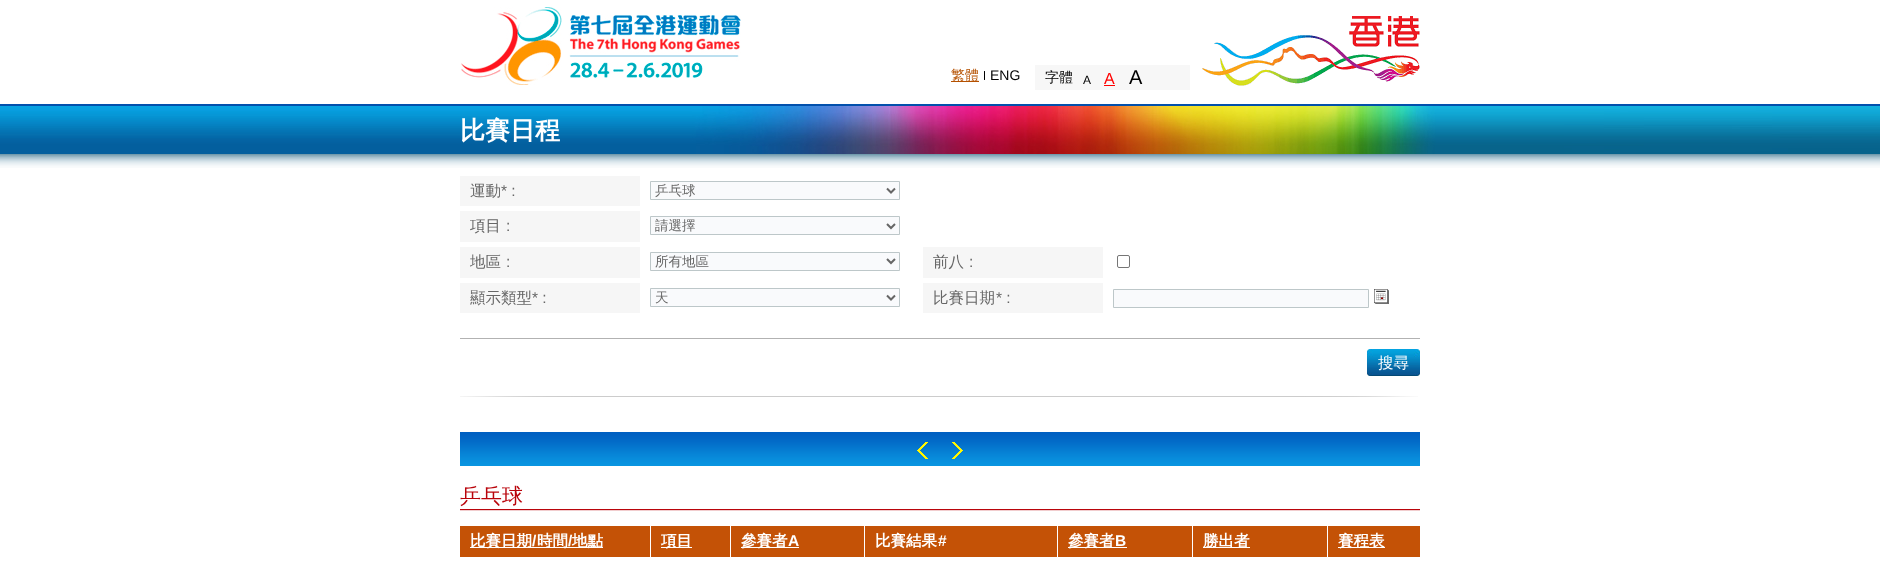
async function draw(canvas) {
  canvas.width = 1880
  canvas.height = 569
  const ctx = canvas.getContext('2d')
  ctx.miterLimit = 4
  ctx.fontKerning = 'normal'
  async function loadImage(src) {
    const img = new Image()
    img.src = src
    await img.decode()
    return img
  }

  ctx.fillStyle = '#fff'
  ctx.fillRect(0, 0, 1880, 569)
  ctx.drawImage(await loadImage('image0.png'), 461, 7, 280, 78)
  ctx.fillStyle = '#b55100'
  ctx.fillRect(951, 81, 28, 1)
  ctx.font = '500 14px WenQuanYi Zen Hei'
  ctx.fillText('繁體', 951, 80)
  ctx.drawImage(await loadImage('image1.png'), 984, 71, 1, 9)
  ctx.font = '14px Liberation Sans'
  ctx.fillStyle = '#000'
  ctx.fillText('ENG', 990, 80)
  ctx.fillStyle = '#f7f7f7'
  ctx.fillRect(1035, 65, 155, 25)
  ctx.font = '500 14px WenQuanYi Zen Hei'
  ctx.fillStyle = '#000'
  ctx.fillText('字體', 1045, 82)
  ctx.font = '12px Liberation Sans'
  ctx.fillText('A', 1083, 84)
  ctx.font = '16px Liberation Sans'
  ctx.fillStyle = '#f00'
  ctx.fillText('A', 1104, 84)
  ctx.fillRect(1104, 85, 11, 1)
  ctx.font = '20px Liberation Sans'
  ctx.fillStyle = '#000'
  ctx.fillText('A', 1129, 84)
  ctx.drawImage(await loadImage('image2.png'), 1202, 16, 218, 70)
  ctx.drawImage(await loadImage('image3.png'), 0, 154, 1880, 14)
  ctx.fillStyle = '#0250ac'
  ctx.fillRect(0, 104, 1880, 2)
  ctx.drawImage(await loadImage('image4.png'), 0, 106, 1880, 48)
  ctx.font = 'bold 25px WenQuanYi Zen Hei'
  ctx.fillStyle = '#fff'
  ctx.fillText('比賽日程', 460, 139)
  ctx.fillStyle = '#f6f6f6'
  ctx.fillRect(460, 176, 180, 30)
  ctx.font = '500 15.5px WenQuanYi Zen Hei'
  ctx.fillStyle = '#666'
  ctx.fillText('運動', 470, 196)
  ctx.font = '15.5px Liberation Sans'
  ctx.fillText('* :', 501, 196)
  ctx.fillStyle = '#f9fafc'
  ctx.beginPath()
  ctx.rect(650.5, 181.5, 249, 18)
  ctx.fill()
  ctx.strokeStyle = '#bdc7c9'
  ctx.stroke()
  ctx.beginPath()
  ctx.moveTo(887, 188.5)
  ctx.lineTo(891, 192.5)
  ctx.lineTo(895, 188.5)
  ctx.strokeStyle = '#666'
  ctx.lineWidth = 2
  ctx.stroke()
  ctx.font = '500 13.5px WenQuanYi Zen Hei'
  ctx.fillStyle = '#666'
  ctx.fillText('乒乓球', 655, 195)
  ctx.fillStyle = '#f6f6f6'
  ctx.fillRect(460, 211, 180, 31)
  ctx.font = '500 15.5px WenQuanYi Zen Hei'
  ctx.fillStyle = '#666'
  ctx.fillText('項目', 470, 231)
  ctx.font = '15.5px Liberation Sans'
  ctx.fillText(':', 506, 231)
  ctx.fillStyle = '#f9fafc'
  ctx.beginPath()
  ctx.rect(650.5, 216.5, 249, 18)
  ctx.fill()
  ctx.strokeStyle = '#bdc7c9'
  ctx.lineWidth = 1
  ctx.stroke()
  ctx.beginPath()
  ctx.moveTo(887, 224)
  ctx.lineTo(891, 228)
  ctx.lineTo(895, 224)
  ctx.strokeStyle = '#666'
  ctx.lineWidth = 2
  ctx.stroke()
  ctx.font = '500 13.5px WenQuanYi Zen Hei'
  ctx.fillStyle = '#666'
  ctx.fillText('請選擇', 655, 230)
  ctx.fillStyle = '#f6f6f6'
  ctx.fillRect(460, 247, 180, 31)
  ctx.font = '500 15.5px WenQuanYi Zen Hei'
  ctx.fillStyle = '#666'
  ctx.fillText('地區', 470, 267)
  ctx.font = '15.5px Liberation Sans'
  ctx.fillText(':', 506, 267)
  ctx.fillStyle = '#f9fafc'
  ctx.beginPath()
  ctx.rect(650.5, 252.5, 249, 18)
  ctx.fill()
  ctx.strokeStyle = '#bdc7c9'
  ctx.lineWidth = 1
  ctx.stroke()
  ctx.beginPath()
  ctx.moveTo(887, 259)
  ctx.lineTo(891, 263)
  ctx.lineTo(895, 259)
  ctx.strokeStyle = '#666'
  ctx.lineWidth = 2
  ctx.stroke()
  ctx.font = '500 13.5px WenQuanYi Zen Hei'
  ctx.fillStyle = '#666'
  ctx.fillText('所有地區', 655, 266)
  ctx.fillStyle = '#f6f6f6'
  ctx.fillRect(923, 247, 180, 31)
  ctx.font = '500 15.5px WenQuanYi Zen Hei'
  ctx.fillStyle = '#666'
  ctx.fillText('前八', 933, 267)
  ctx.font = '15.5px Liberation Sans'
  ctx.fillText(':', 969, 267)
  ctx.beginPath()
  ctx.roundRect(1117.5, 255.5, 12, 12, 1.5)
  ctx.strokeStyle = '#767676'
  ctx.lineWidth = 1
  ctx.stroke()
  ctx.fillStyle = '#f6f6f6'
  ctx.fillRect(460, 283, 180, 30)
  ctx.font = '500 15.5px WenQuanYi Zen Hei'
  ctx.fillStyle = '#666'
  ctx.fillText('顯示類型', 470, 303)
  ctx.font = '15.5px Liberation Sans'
  ctx.fillText('* :', 532, 303)
  ctx.fillStyle = '#f9fafc'
  ctx.beginPath()
  ctx.rect(650.5, 288.5, 249, 18)
  ctx.fill()
  ctx.strokeStyle = '#bdc7c9'
  ctx.stroke()
  ctx.beginPath()
  ctx.moveTo(887, 295.5)
  ctx.lineTo(891, 299.5)
  ctx.lineTo(895, 295.5)
  ctx.strokeStyle = '#666'
  ctx.lineWidth = 2
  ctx.stroke()
  ctx.font = '500 13.5px WenQuanYi Zen Hei'
  ctx.fillStyle = '#666'
  ctx.fillText('天', 655, 302)
  ctx.fillStyle = '#f6f6f6'
  ctx.fillRect(923, 283, 180, 30)
  ctx.font = '500 15.5px WenQuanYi Zen Hei'
  ctx.fillStyle = '#666'
  ctx.fillText('比賽日期', 933, 303)
  ctx.font = '15.5px Liberation Sans'
  ctx.fillText('* :', 996, 303)
  ctx.fillStyle = '#f9fafc'
  ctx.beginPath()
  ctx.rect(1113.5, 289.5, 255, 18)
  ctx.fill()
  ctx.strokeStyle = '#bdc7c9'
  ctx.lineWidth = 1
  ctx.stroke()
  ctx.drawImage(await loadImage('image5.png'), 1374, 289, 15, 15)
  ctx.fillStyle = '#b2b2b2'
  ctx.fillRect(460, 338, 960, 1)
  ctx.drawImage(await loadImage('image6.png'), 1414, 349, 6, 27)
  ctx.drawImage(await loadImage('image7.png'), 1367, 349, 6, 27)
  ctx.drawImage(await loadImage('image8.png'), 1373, 349, 41, 27)
  ctx.font = '500 15.5px WenQuanYi Zen Hei'
  ctx.fillStyle = '#fff'
  ctx.fillText('搜尋', 1378, 368)
  ctx.drawImage(await loadImage('image9.png'), 460, 396, 958, 1)
  ctx.drawImage(await loadImage('image10.png'), 460, 432, 960, 34)
  ctx.drawImage(await loadImage('image11.png'), 917, 442, 11, 17)
  ctx.drawImage(await loadImage('image12.png'), 952, 442, 11, 17)
  ctx.drawImage(await loadImage('image13.png'), 460, 509, 960, 2)
  ctx.font = '500 21px WenQuanYi Zen Hei'
  ctx.fillStyle = '#b9040b'
  ctx.fillText('乒乓球', 460, 503)
  ctx.fillStyle = '#c45206'
  ctx.fillRect(460, 526, 190, 31)
  ctx.fillStyle = '#fff'
  ctx.fillRect(470, 547, 133, 1)
  ctx.font = 'bold 15.5px WenQuanYi Zen Hei'
  ctx.fillText('比賽日期', 470, 546)
  ctx.font = 'bold 15.5px Liberation Sans'
  ctx.fillText('/', 532, 546)
  ctx.font = 'bold 15.5px WenQuanYi Zen Hei'
  ctx.fillText('時間', 537, 546)
  ctx.font = 'bold 15.5px Liberation Sans'
  ctx.fillText('/', 568, 546)
  ctx.font = 'bold 15.5px WenQuanYi Zen Hei'
  ctx.fillText('地點', 572, 546)
  ctx.fillStyle = '#c45206'
  ctx.fillRect(651, 526, 79, 31)
  ctx.fillStyle = '#fff'
  ctx.fillRect(661, 547, 31, 1)
  ctx.fillText('項目', 661, 546)
  ctx.fillStyle = '#c45206'
  ctx.fillRect(731, 526, 133, 31)
  ctx.fillStyle = '#fff'
  ctx.fillRect(741, 547, 58, 1)
  ctx.fillText('參賽者', 741, 546)
  ctx.font = 'bold 15.5px Liberation Sans'
  ctx.fillText('A', 788, 546)
  ctx.fillStyle = '#c45206'
  ctx.fillRect(865, 526, 192, 31)
  ctx.font = 'bold 15.5px WenQuanYi Zen Hei'
  ctx.fillStyle = '#fff'
  ctx.fillText('比賽結果', 875, 546)
  ctx.font = 'bold 15.5px Liberation Sans'
  ctx.fillText('#', 938, 546)
  ctx.fillStyle = '#c45206'
  ctx.fillRect(1058, 526, 134, 31)
  ctx.fillStyle = '#fff'
  ctx.fillRect(1068, 547, 59, 1)
  ctx.font = 'bold 15.5px WenQuanYi Zen Hei'
  ctx.fillText('參賽者', 1068, 546)
  ctx.font = 'bold 15.5px Liberation Sans'
  ctx.fillText('B', 1115, 546)
  ctx.fillStyle = '#c45206'
  ctx.fillRect(1193, 526, 134, 31)
  ctx.fillStyle = '#fff'
  ctx.fillRect(1203, 547, 47, 1)
  ctx.font = 'bold 15.5px WenQuanYi Zen Hei'
  ctx.fillText('勝出者', 1203, 546)
  ctx.fillStyle = '#c45206'
  ctx.fillRect(1328, 526, 92, 31)
  ctx.fillStyle = '#fff'
  ctx.fillRect(1338, 547, 47, 1)
  ctx.fillText('賽程表', 1338, 546)
}

draw(document.querySelector('canvas'))
